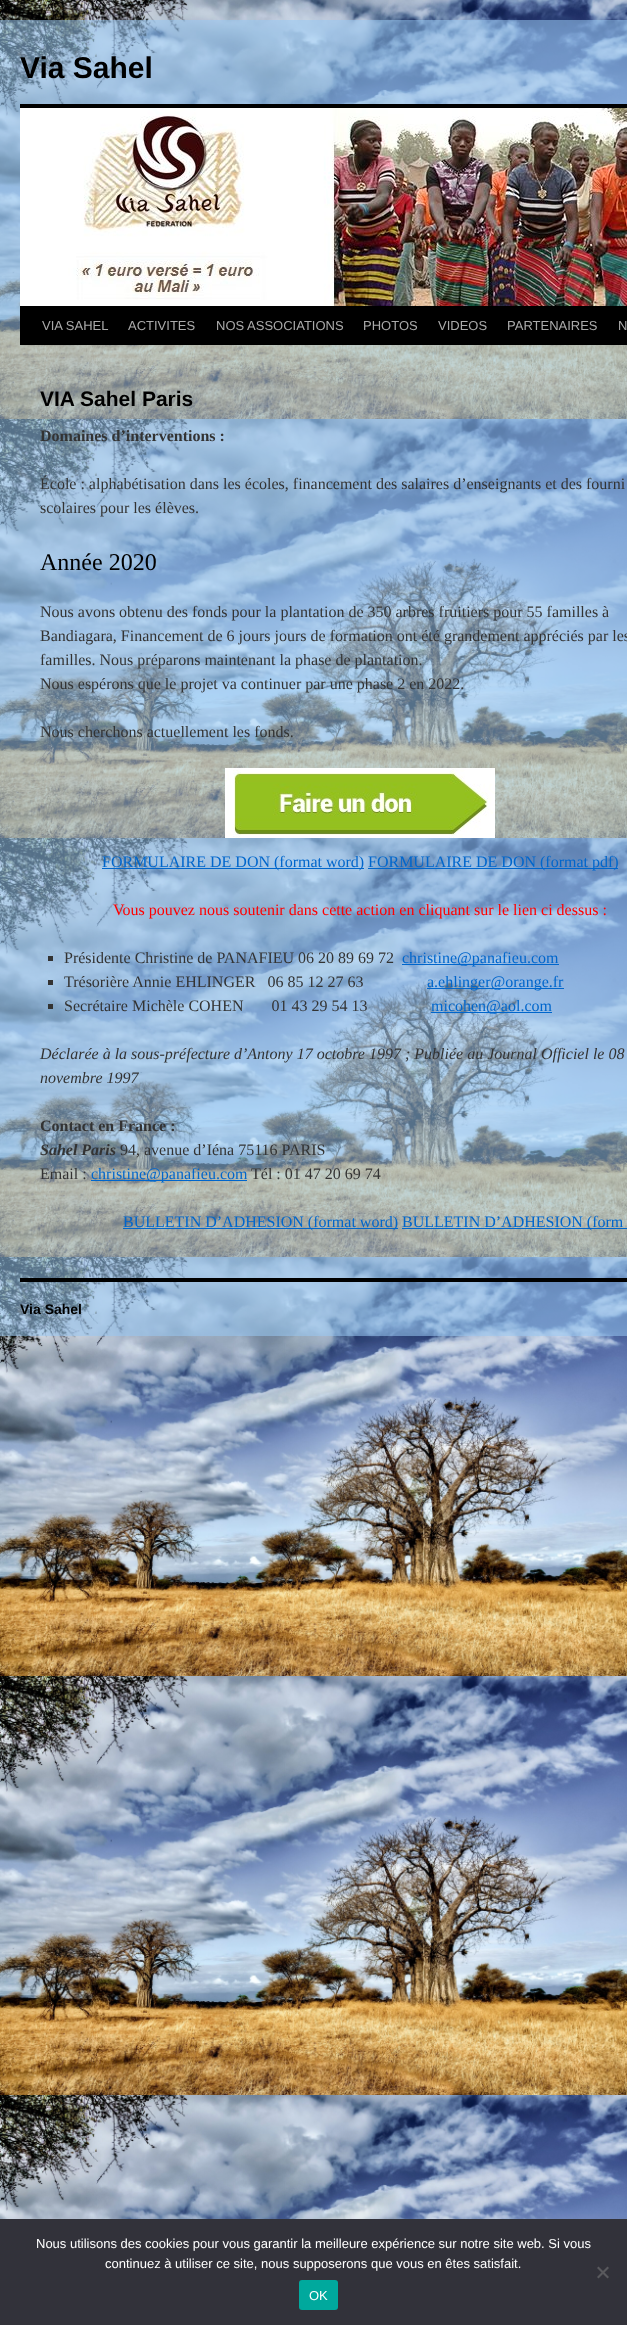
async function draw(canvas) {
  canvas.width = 627
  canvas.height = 2325
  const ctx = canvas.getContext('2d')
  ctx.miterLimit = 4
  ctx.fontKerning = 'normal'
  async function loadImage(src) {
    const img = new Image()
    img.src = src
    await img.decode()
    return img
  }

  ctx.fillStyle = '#fff'
  ctx.fillRect(0, 0, 627, 2325)
  ctx.drawImage(await loadImage('image0.png'), 0, 0, 627, 2219)
  ctx.fillStyle = '#98c8f38f'
  ctx.fillRect(0, 20, 627, 1316)
  ctx.font = 'bold 30px Liberation Sans'
  ctx.fillStyle = '#000'
  ctx.fillText('Via Sahel', 20, 78)
  ctx.fillRect(20, 104, 607, 4)
  ctx.fillRect(20, 306, 607, 39)
  ctx.drawImage(await loadImage('image1.png'), 20, 108, 607, 198)
  ctx.font = '13px Liberation Sans'
  ctx.fillStyle = '#aaa'
  ctx.fillText('VIA SAHEL', 42, 330)
  ctx.fillText('ACTIVITES', 128, 330)
  ctx.fillText('NOS ASSOCIATIONS', 216, 330)
  ctx.fillText('PHOTOS', 363, 330)
  ctx.fillText('VIDEOS', 438, 330)
  ctx.fillText('PARTENAIRES', 507, 330)
  ctx.fillText('N', 618, 330)
  ctx.font = 'bold 21px Liberation Sans'
  ctx.fillStyle = '#000'
  ctx.fillText('VIA Sahel Paris', 40, 406)
  ctx.font = 'bold 16px Liberation Serif'
  ctx.fillStyle = '#333'
  ctx.fillText('Domaines d’interventions :', 40, 441)
  ctx.font = '16px Liberation Serif'
  ctx.fillText('École : alphabétisation dans les écoles, financement des salaires d’enseignants et des fourni', 40, 489)
  ctx.fillText('scolaires pour les élèves.', 40, 513)
  ctx.font = '24px Liberation Serif'
  ctx.fillStyle = '#000'
  ctx.fillText('Année 2020', 40, 570)
  ctx.font = '16px Liberation Serif'
  ctx.fillStyle = '#333'
  ctx.fillText('Nous avons obtenu des fonds pour la plantation de 350 arbres fruitiers pour 55 familles à', 40, 617)
  ctx.fillText('Bandiagara, Financement de 6 jours jours de formation ont été grandement appréciés par les', 40, 641)
  ctx.fillText('familles. Nous préparons maintenant la phase de plantation.', 40, 665)
  ctx.fillText('Nous espérons que le projet va continuer par une phase 2 en 2022.', 40, 689)
  ctx.fillText('Nous cherchons actuellement les fonds.', 40, 737)
  ctx.drawImage(await loadImage('image2.png'), 225, 768, 270, 70)
  ctx.fillStyle = '#06c'
  ctx.fillRect(102, 868, 262, 1)
  ctx.fillText('FORMULAIRE DE DON (format word)', 102, 867)
  ctx.fillRect(368, 868, 250, 1)
  ctx.fillText('FORMULAIRE DE DON (format pdf)', 368, 867)
  ctx.fillStyle = '#f00'
  ctx.fillText('Vous pouvez nous soutenir dans cette action en cliquant sur le lien ci dessus :', 113, 915)
  ctx.fillStyle = '#333'
  ctx.fillRect(48, 956, 5, 5)
  ctx.fillText('Présidente Christine de PANAFIEU 06 20 89 69 72', 64, 963)
  ctx.fillStyle = '#06c'
  ctx.fillRect(402, 964, 157, 1)
  ctx.fillText('christine@panafieu.com', 402, 963)
  ctx.fillStyle = '#333'
  ctx.fillRect(48, 980, 5, 5)
  ctx.fillText('Trésorière Annie EHLINGER   06 85 12 27 63', 64, 987)
  ctx.fillStyle = '#06c'
  ctx.fillRect(427, 988, 137, 1)
  ctx.fillText('a.ehlinger@orange.fr', 427, 987)
  ctx.fillStyle = '#333'
  ctx.fillRect(48, 1004, 5, 5)
  ctx.fillText('Secrétaire Michèle COHEN       01 43 29 54 13', 64, 1011)
  ctx.fillStyle = '#06c'
  ctx.fillRect(431, 1012, 121, 1)
  ctx.fillText('micohen@aol.com', 431, 1011)
  ctx.font = 'italic 16px Liberation Serif'
  ctx.fillStyle = '#333'
  ctx.fillText('Déclarée à la sous-préfecture d’Antony 17 octobre 1997 ; Publiée au Journal Officiel le 08', 40, 1059)
  ctx.fillText('novembre 1997', 40, 1083)
  ctx.font = 'bold 16px Liberation Serif'
  ctx.fillText('Contact en France :', 40, 1131)
  ctx.font = 'italic bold 16px Liberation Serif'
  ctx.fillText('Sahel Paris', 40, 1155)
  ctx.font = '16px Liberation Serif'
  ctx.fillText('94, avenue d’Iéna 75116 PARIS', 120, 1155)
  ctx.fillText('Email :', 40, 1179)
  ctx.fillStyle = '#06c'
  ctx.fillRect(91, 1180, 156, 1)
  ctx.fillText('christine@panafieu.com', 91, 1179)
  ctx.fillStyle = '#333'
  ctx.fillText('Tél : 01 47 20 69 74', 251, 1179)
  ctx.fillStyle = '#06c'
  ctx.fillRect(123, 1228, 275, 1)
  ctx.fillText('BULLETIN D’ADHESION (format word)', 123, 1227)
  ctx.fillRect(402, 1228, 225, 1)
  ctx.fillText('BULLETIN D’ADHESION (form', 402, 1227)
  ctx.fillStyle = '#000'
  ctx.fillRect(20, 1278, 607, 4)
  ctx.font = 'bold 14px Liberation Sans'
  ctx.fillText('Via Sahel', 20, 1314)
  ctx.fillStyle = '#32323a'
  ctx.fillRect(0, 2219, 627, 106)
  ctx.font = '13px Liberation Sans'
  ctx.fillStyle = '#fff'
  ctx.fillText('Nous utilisons des cookies pour vous garantir la meilleure expérience sur notre site web. Si vous', 36, 2248)
  ctx.fillText('continuez à utiliser ce site, nous supposerons que vous en êtes satisfait.', 105, 2268)
  ctx.fillStyle = '#59595d'
  ctx.beginPath()
  ctx.moveTo(607.5, 2266.5)
  ctx.lineTo(609, 2268)
  ctx.lineTo(598.5, 2278.5)
  ctx.lineTo(597, 2277)
  ctx.closePath()
  ctx.fill()
  ctx.beginPath()
  ctx.moveTo(597, 2268)
  ctx.lineTo(598.5, 2266.5)
  ctx.lineTo(609, 2277)
  ctx.lineTo(607.5, 2278.5)
  ctx.closePath()
  ctx.fill()
  ctx.fillStyle = '#00a99d'
  ctx.beginPath()
  ctx.roundRect(299, 2280, 39, 30, 3)
  ctx.fill()
  ctx.fillStyle = '#fff'
  ctx.fillText('OK', 309, 2300)
}

draw(document.querySelector('canvas'))
